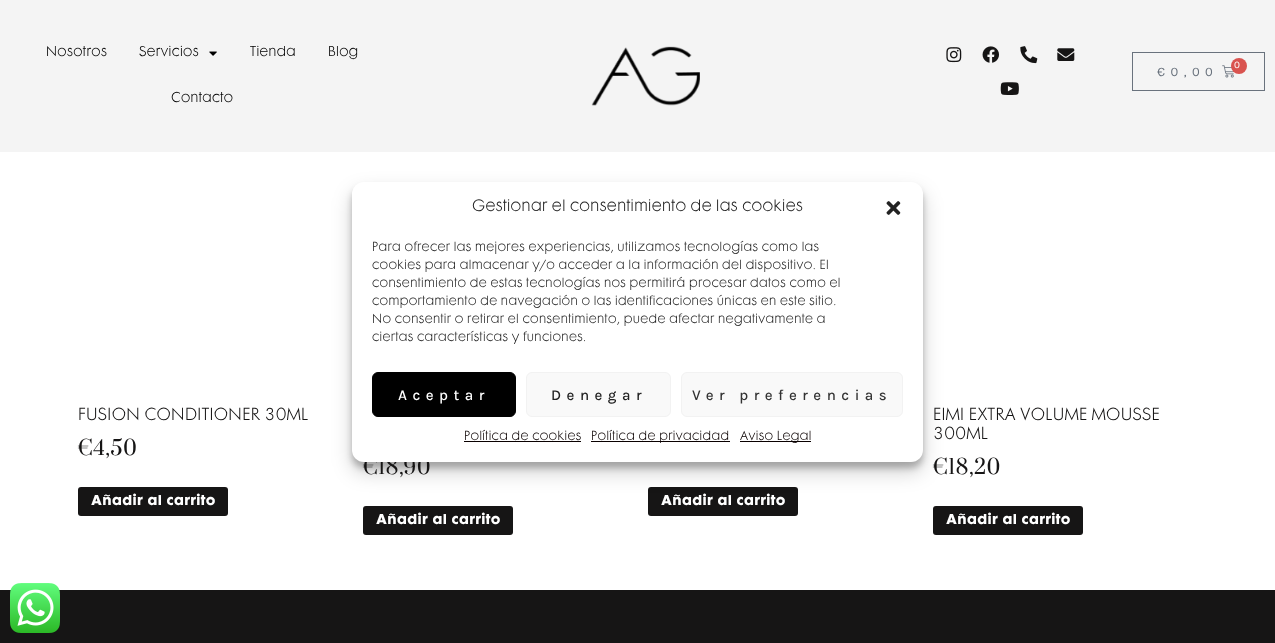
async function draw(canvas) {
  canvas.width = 1275
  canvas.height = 643
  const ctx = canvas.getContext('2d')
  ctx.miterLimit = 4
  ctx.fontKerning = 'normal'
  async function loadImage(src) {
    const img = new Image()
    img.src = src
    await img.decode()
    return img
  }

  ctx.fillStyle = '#fff'
  ctx.fillRect(0, 0, 1275, 643)
  ctx.fillStyle = '#f4f4f4'
  ctx.fillRect(0, 0, 1275, 152)
  ctx.letterSpacing = '0.4px'
  ctx.font = '300 13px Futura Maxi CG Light'
  ctx.fillStyle = '#000'
  ctx.fillText('Nosotros', 46, 56)
  ctx.fillText('Servicios', 139, 56)
  ctx.drawImage(await loadImage('image0.png'), 209, 51, 8, 5)
  ctx.fillText('Tienda', 250, 56)
  ctx.fillText('Blog', 328, 56)
  ctx.fillText('Contacto', 171, 102)
  ctx.drawImage(await loadImage('image1.png'), 591, 46, 109, 60)
  ctx.drawImage(await loadImage('image2.png'), 946, 47, 16, 16)
  ctx.drawImage(await loadImage('image3.png'), 982, 46, 17, 17)
  ctx.drawImage(await loadImage('image4.png'), 1020, 46, 18, 18)
  ctx.drawImage(await loadImage('image5.png'), 1057, 48, 18, 13)
  ctx.drawImage(await loadImage('image6.png'), 1000, 82, 19, 13)
  ctx.strokeStyle = '#69727d'
  ctx.strokeRect(1132.5, 52.5, 132, 38)
  ctx.drawImage(await loadImage('image7.png'), 1222, 65, 12, 13)
  ctx.fillStyle = '#d9534f'
  ctx.beginPath()
  ctx.arc(1239, 66, 8, 0, 2 * Math.PI)
  ctx.fill()
  ctx.letterSpacing = '5.5px'
  ctx.font = '10px Karla'
  ctx.fillStyle = '#fff'
  ctx.fillText('0', 1234, 68)
  ctx.font = '13px Karla'
  ctx.fillStyle = '#69727d'
  ctx.fillText('€0,00', 1157, 76)
  ctx.fillStyle = '#0000003b'
  ctx.filter = 'blur(3px)'
  ctx.beginPath()
  ctx.roundRect(352, 188, 571, 280, 12)
  ctx.fill()
  ctx.filter = 'none'
  ctx.fillStyle = '#161515'
  ctx.beginPath()
  ctx.roundRect(648, 487, 150, 29, 3)
  ctx.fill()
  ctx.fillStyle = '#00000030'
  ctx.filter = 'blur(10px)'
  ctx.beginPath()
  ctx.roundRect(352, 192, 571, 280, 12)
  ctx.fill()
  ctx.filter = 'none'
  ctx.letterSpacing = '0.4px'
  ctx.font = '20px Prata'
  ctx.fillStyle = '#161515'
  ctx.fillText('€18,90', 363, 474)
  ctx.fillStyle = '#fff'
  ctx.beginPath()
  ctx.roundRect(352, 182, 571, 280, 12)
  ctx.fill()
  ctx.font = '300 15px Futura Maxi CG Light'
  ctx.fillStyle = '#222'
  ctx.fillText('Gestionar el consentimiento de las cookies', 472, 211)
  ctx.drawImage(await loadImage('image8.png'), 886, 201, 15, 14)
  ctx.font = '300 12px Futura Maxi CG Light'
  ctx.fillText('Para ofrecer las mejores experiencias, utilizamos tecnologías como las', 372, 251)
  ctx.fillText('cookies para almacenar y/o acceder a la información del dispositivo. El', 372, 269)
  ctx.fillText('consentimiento de estas tecnologías nos permitirá procesar datos como el', 372, 287)
  ctx.fillText('comportamiento de navegación o las identificaciones únicas en este sitio.', 372, 305)
  ctx.fillText('No consentir o retirar el consentimiento, puede afectar negativamente a', 372, 323)
  ctx.fillText('ciertas características y funciones.', 372, 341)
  ctx.fillStyle = '#000'
  ctx.beginPath()
  ctx.roundRect(372.5, 372.5, 143, 44, 5.5)
  ctx.fill()
  ctx.strokeStyle = '#000'
  ctx.stroke()
  ctx.letterSpacing = '5.5px'
  ctx.font = '500 15px Karla'
  ctx.fillStyle = '#fff'
  ctx.fillText('Aceptar', 398, 400)
  ctx.fillStyle = '#f9f9f9'
  ctx.beginPath()
  ctx.roundRect(526.5, 372.5, 144, 44, 5.5)
  ctx.fill()
  ctx.strokeStyle = '#f2f2f2'
  ctx.stroke()
  ctx.fillStyle = '#222'
  ctx.fillText('Denegar', 551, 400)
  ctx.fillStyle = '#f9f9f9'
  ctx.beginPath()
  ctx.roundRect(681.5, 372.5, 221, 44, 5.5)
  ctx.fill()
  ctx.stroke()
  ctx.fillStyle = '#333'
  ctx.fillText('Ver preferencias', 692, 400)
  ctx.letterSpacing = '0.4px'
  ctx.font = '300 12px Futura Maxi CG Light'
  ctx.fillStyle = '#0a0000'
  ctx.fillText('Política de cookies', 464, 440)
  ctx.fillRect(464, 441, 117, 1)
  ctx.fillRect(591, 441, 139, 1)
  ctx.fillText('Política de privacidad', 591, 440)
  ctx.fillRect(740, 441, 71, 1)
  ctx.fillText('Aviso Legal', 740, 440)
  ctx.font = '300 16px Futura Maxi CG Light'
  ctx.fillStyle = '#161515'
  ctx.fillText('FUSION CONDITIONER 30ML', 78, 420)
  ctx.font = '20px Prata'
  ctx.fillText('€4,50', 78, 455)
  ctx.beginPath()
  ctx.roundRect(78, 487, 150, 29, 3)
  ctx.fill()
  ctx.font = 'bold 13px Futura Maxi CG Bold'
  ctx.fillStyle = '#fff'
  ctx.fillText('Añadir al carrito', 91, 505)
  ctx.fillStyle = '#161515'
  ctx.beginPath()
  ctx.roundRect(363, 506, 150, 29, 3)
  ctx.fill()
  ctx.fillStyle = '#fff'
  ctx.fillText('Añadir al carrito', 376, 524)
  ctx.fillText('Añadir al carrito', 661, 505)
  ctx.font = '300 16px Futura Maxi CG Light'
  ctx.fillStyle = '#161515'
  ctx.fillText('EIMI EXTRA VOLUME MOUSSE', 933, 420)
  ctx.fillText('300ML', 933, 439)
  ctx.font = '20px Prata'
  ctx.fillText('€18,20', 933, 474)
  ctx.beginPath()
  ctx.roundRect(933, 506, 150, 29, 3)
  ctx.fill()
  ctx.font = 'bold 13px Futura Maxi CG Bold'
  ctx.fillStyle = '#fff'
  ctx.fillText('Añadir al carrito', 946, 524)
  ctx.fillStyle = '#161515'
  ctx.fillRect(0, 590, 1275, 53)
  ctx.drawImage(await loadImage('image9.png'), 10, 583, 50, 50)
}

draw(document.querySelector('canvas'))
